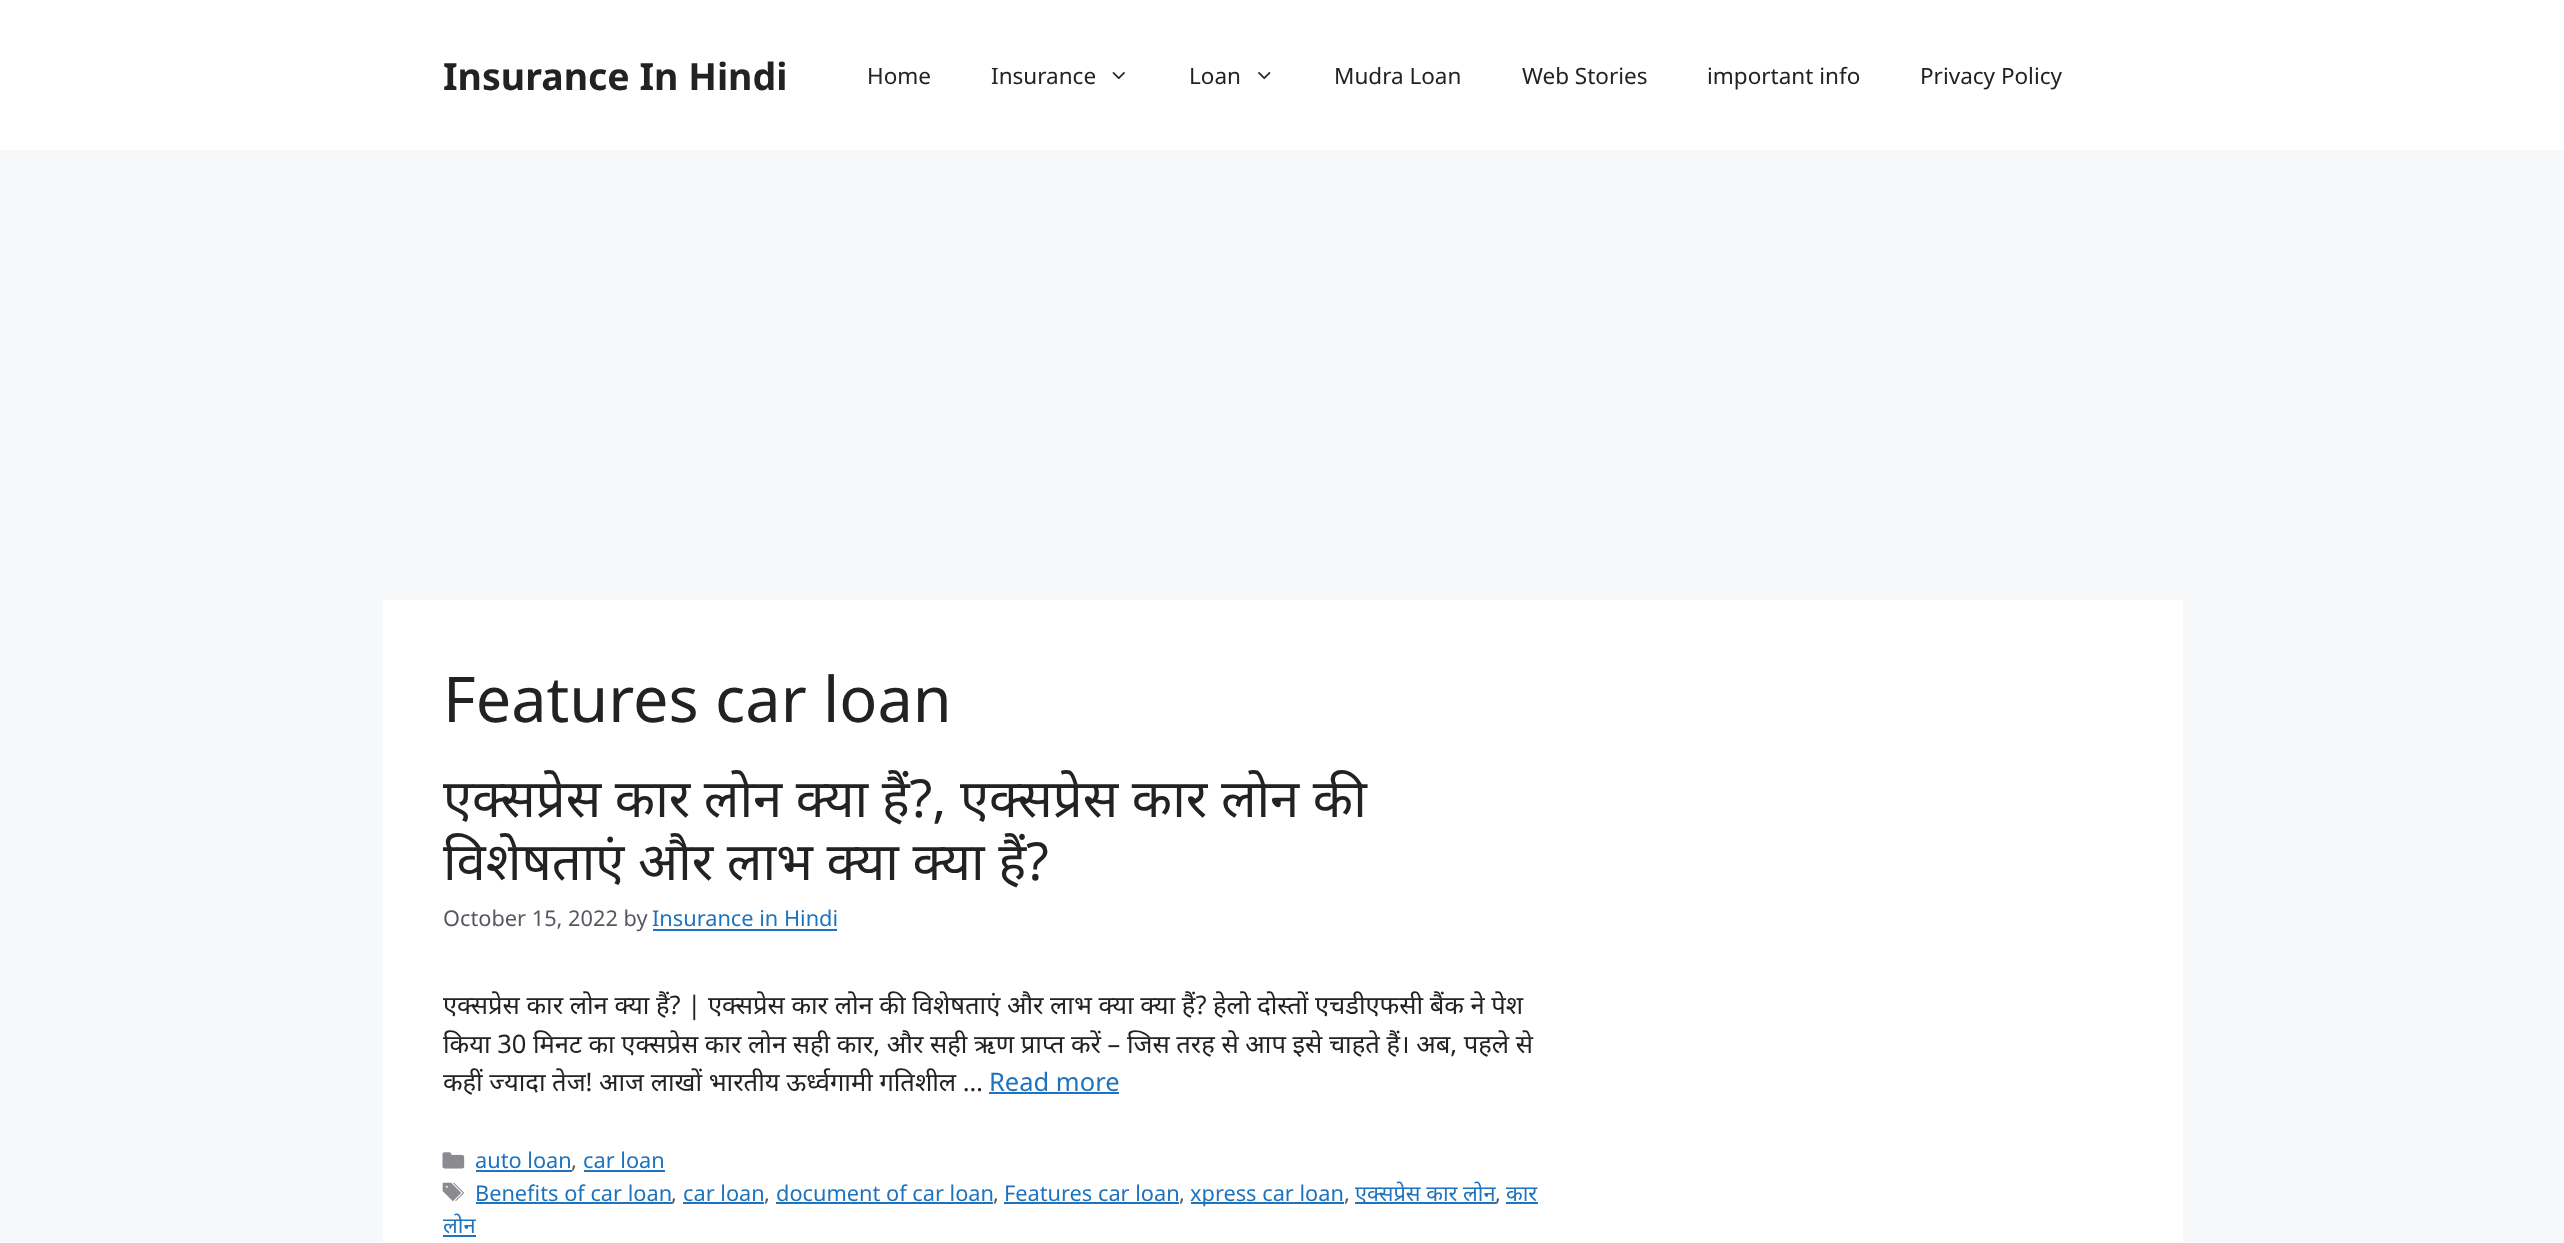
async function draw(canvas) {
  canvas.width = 2564
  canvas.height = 1243
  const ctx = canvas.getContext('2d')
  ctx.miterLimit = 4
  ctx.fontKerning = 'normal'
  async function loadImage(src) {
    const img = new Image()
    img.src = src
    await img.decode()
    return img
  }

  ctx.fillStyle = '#f7f8f9'
  ctx.fillRect(0, 0, 2564, 1243)
  ctx.fillStyle = '#fff'
  ctx.fillRect(0, 0, 2564, 150)
  ctx.font = 'bold 37.5px Noto Sans'
  ctx.fillStyle = '#222'
  ctx.fillText('Insurance In Hindi', 443, 90)
  ctx.font = '22.5px Noto Sans'
  ctx.fillText('Home', 867, 84)
  ctx.fillText('Insurance', 991, 84)
  ctx.drawImage(await loadImage('image0.png'), 1112, 72, 13, 8)
  ctx.fillText('Loan', 1189, 84)
  ctx.drawImage(await loadImage('image1.png'), 1258, 72, 13, 8)
  ctx.fillText('Mudra Loan', 1334, 84)
  ctx.fillText('Web Stories', 1522, 84)
  ctx.fillText('important info', 1707, 84)
  ctx.fillText('Privacy Policy', 1920, 84)
  ctx.fillStyle = '#fff'
  ctx.fillRect(383, 600, 1800, 643)
  ctx.font = '63px Noto Sans'
  ctx.fillStyle = '#222'
  ctx.fillText('Features car loan', 443, 722)
  ctx.font = '52.5px Noto Sans'
  ctx.fillText('एक्सप्रेस कार लोन क्या हैं?, एक्सप्रेस कार लोन की', 443, 817)
  ctx.fillText('विशेषताएं और लाभ क्या क्या हैं?', 443, 880)
  ctx.font = '21.75px Noto Sans'
  ctx.fillStyle = '#575760'
  ctx.fillText('October 15, 2022 by', 443, 926)
  ctx.fillStyle = '#1e73be'
  ctx.fillText('Insurance in Hindi', 652, 926)
  ctx.fillRect(653, 929, 184, 2)
  ctx.font = '25.5px Noto Sans'
  ctx.fillStyle = '#222'
  ctx.fillText('एक्सप्रेस कार लोन क्या हैं? | एक्सप्रेस कार लोन की विशेषताएं और लाभ क्या क्या हैं? हेलो दोस्तों एचडीएफसी बैंक ने पेश', 443, 1014)
  ctx.fillText('किया 30 मिनट का एक्सप्रेस कार लोन सही कार, और सही ऋण प्राप्त करें – जिस तरह से आप इसे चाहते हैं। अब, पहले से', 443, 1053)
  ctx.fillText('कहीं ज्यादा तेज! आज लाखों भारतीय ऊर्ध्वगामी गतिशील …', 443, 1091)
  ctx.fillStyle = '#1e73be'
  ctx.fillText('Read more', 989, 1091)
  ctx.fillRect(989, 1092, 130, 2)
  ctx.drawImage(await loadImage('image2.png'), 442, 1152, 23, 17)
  ctx.font = '21.75px Noto Sans'
  ctx.fillText('auto loan', 475, 1168)
  ctx.fillRect(476, 1170, 96, 2)
  ctx.fillStyle = '#575760'
  ctx.fillText(',', 571, 1168)
  ctx.fillStyle = '#1e73be'
  ctx.fillText('car loan', 583, 1168)
  ctx.fillRect(584, 1170, 81, 2)
  ctx.drawImage(await loadImage('image3.png'), 442, 1182, 22, 19)
  ctx.fillText('Benefits of car loan', 475, 1201)
  ctx.fillRect(476, 1202, 196, 2)
  ctx.fillStyle = '#575760'
  ctx.fillText(',', 671, 1201)
  ctx.fillStyle = '#1e73be'
  ctx.fillText('car loan', 683, 1201)
  ctx.fillRect(683, 1202, 81, 2)
  ctx.fillStyle = '#575760'
  ctx.fillText(',', 764, 1201)
  ctx.fillStyle = '#1e73be'
  ctx.fillText('document of car loan', 776, 1201)
  ctx.fillRect(776, 1202, 217, 2)
  ctx.fillStyle = '#575760'
  ctx.fillText(',', 993, 1201)
  ctx.fillStyle = '#1e73be'
  ctx.fillText('Features car loan', 1004, 1201)
  ctx.fillRect(1004, 1202, 175, 2)
  ctx.fillStyle = '#575760'
  ctx.fillText(',', 1179, 1201)
  ctx.fillStyle = '#1e73be'
  ctx.fillRect(1191, 1202, 153, 2)
  ctx.fillText('xpress car loan', 1190, 1201)
  ctx.fillStyle = '#575760'
  ctx.fillText(',', 1344, 1201)
  ctx.fillStyle = '#1e73be'
  ctx.fillRect(1355, 1202, 141, 2)
  ctx.fillText('एक्सप्रेस कार लोन', 1355, 1201)
  ctx.fillStyle = '#575760'
  ctx.fillText(',', 1495, 1201)
  ctx.fillStyle = '#1e73be'
  ctx.fillText('कार', 1506, 1201)
  ctx.fillRect(1506, 1202, 32, 2)
  ctx.fillText('लोन', 443, 1233)
  ctx.fillRect(443, 1235, 33, 2)
}

draw(document.querySelector('canvas'))
